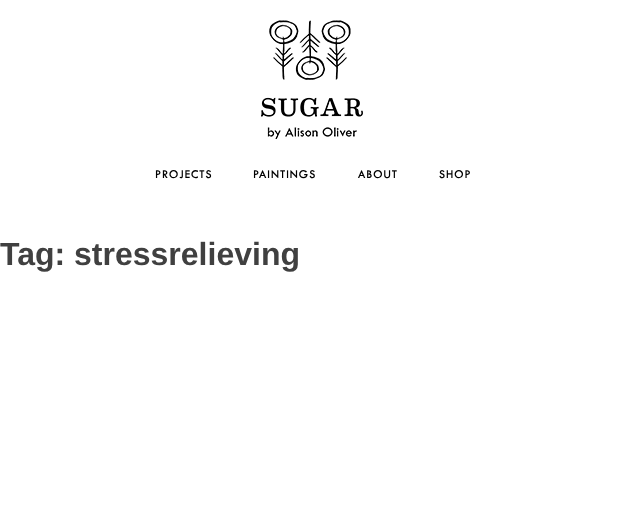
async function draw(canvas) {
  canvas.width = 626
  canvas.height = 532
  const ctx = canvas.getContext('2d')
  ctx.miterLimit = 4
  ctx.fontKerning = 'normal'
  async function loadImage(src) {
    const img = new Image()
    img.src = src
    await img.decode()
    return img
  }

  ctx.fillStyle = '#fff'
  ctx.fillRect(0, 0, 626, 532)
  ctx.drawImage(await loadImage('image0.png'), 261, 20, 102, 119)
  ctx.letterSpacing = '1px'
  ctx.font = '12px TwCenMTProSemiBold'
  ctx.fillStyle = '#000'
  ctx.fillText('PROJECTS', 155, 178)
  ctx.fillText('PAINTINGS', 253, 178)
  ctx.fillText('ABOUT', 358, 178)
  ctx.fillText('SHOP', 439, 178)
  ctx.letterSpacing = '0px'
  ctx.font = 'bold 32px Liberation Sans'
  ctx.fillStyle = '#404040'
  ctx.fillText('Tag: stressrelieving', 0, 265)
}

draw(document.querySelector('canvas'))
